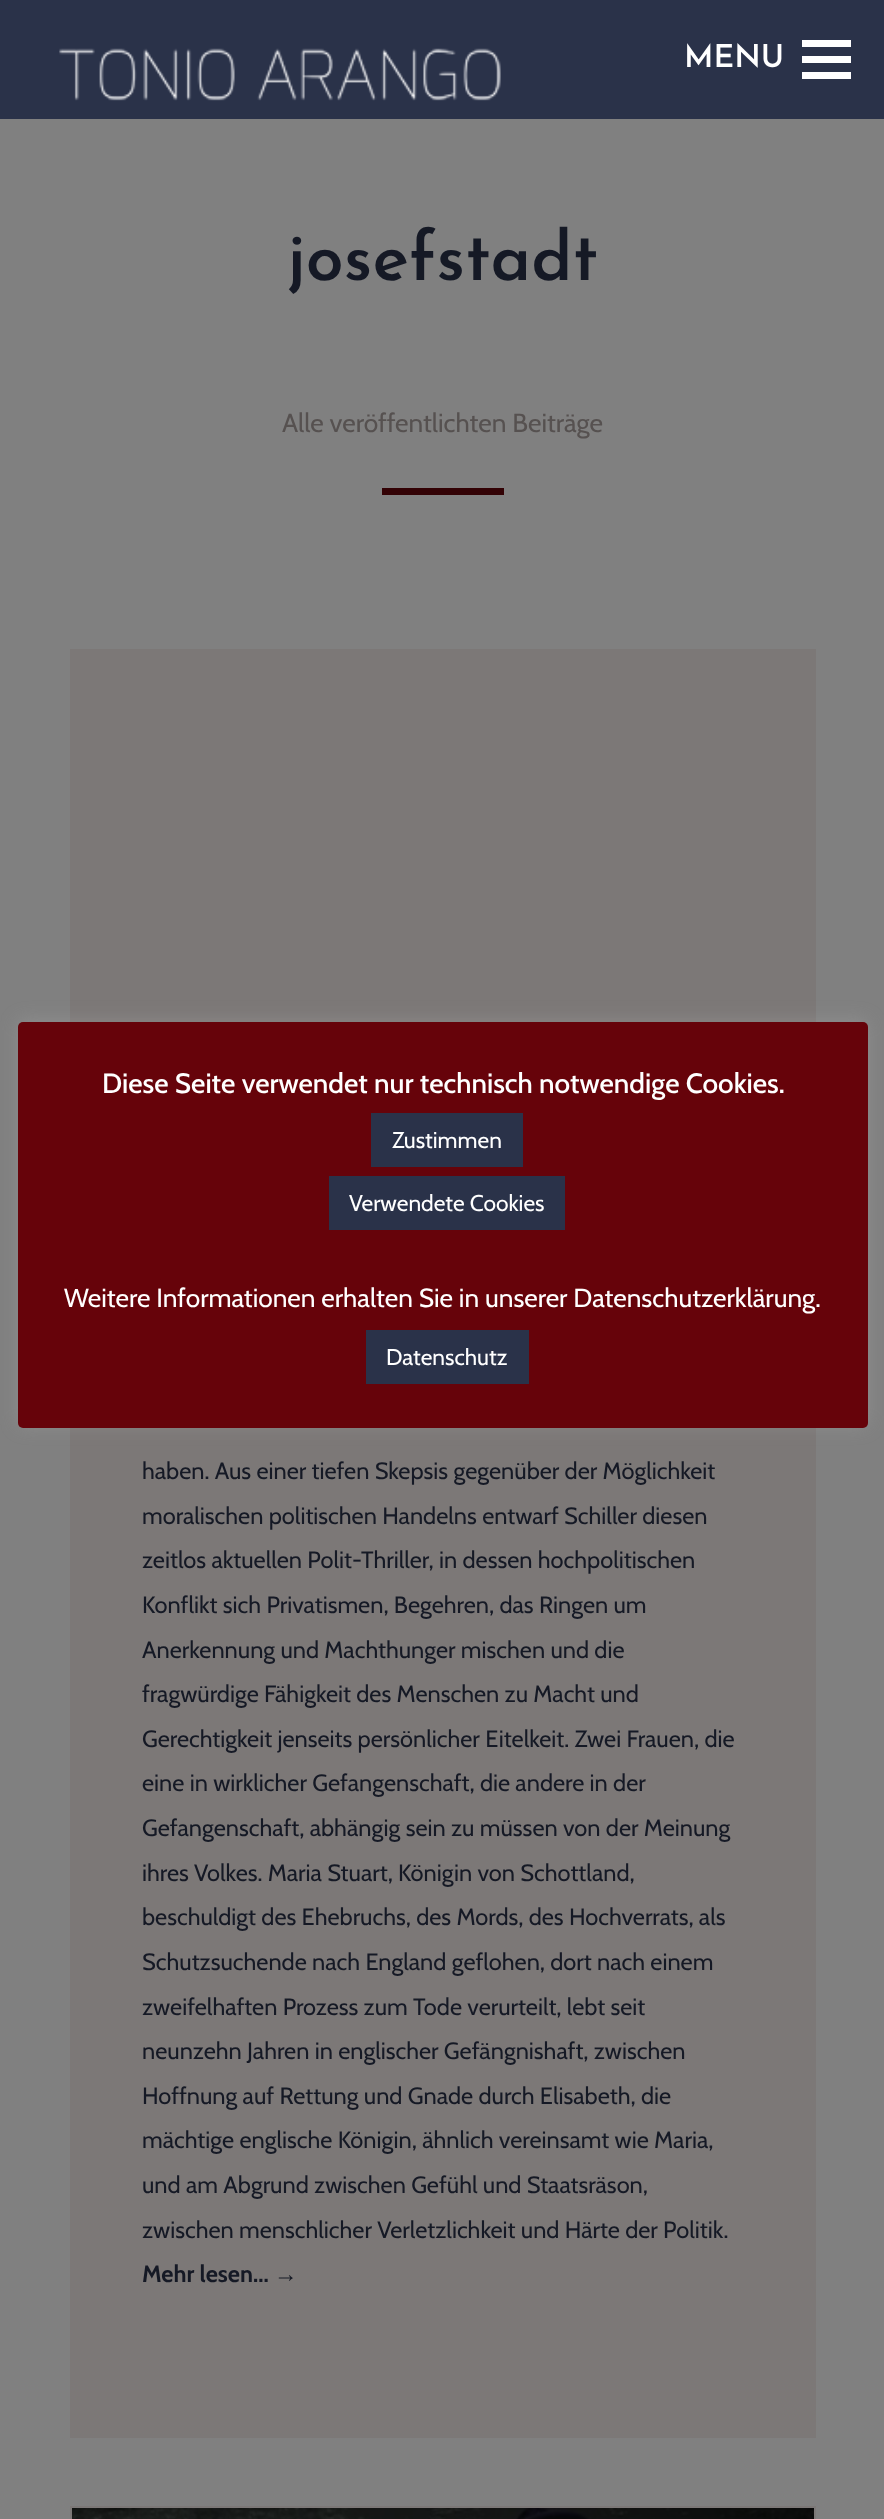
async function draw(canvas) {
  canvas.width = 884
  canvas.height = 2519
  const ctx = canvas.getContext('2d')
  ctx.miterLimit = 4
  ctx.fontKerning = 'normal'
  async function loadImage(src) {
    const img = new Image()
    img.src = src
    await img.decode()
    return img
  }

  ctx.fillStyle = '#808080'
  ctx.fillRect(0, 0, 884, 2519)
  ctx.fillStyle = '#2a3249'
  ctx.fillRect(0, 0, 884, 119)
  ctx.drawImage(await loadImage('image0.png'), 59, 48, 442, 53)
  ctx.font = '600 31.5px Josefin Sans'
  ctx.fillStyle = '#fff'
  ctx.fillText('MENU', 684, 67)
  ctx.fillRect(802, 40, 49, 7)
  ctx.fillRect(802, 56, 49, 7)
  ctx.fillRect(802, 72, 49, 7)
  ctx.font = '600 68.25px Josefin Sans'
  ctx.fillStyle = '#151925'
  ctx.fillText('josefstadt', 287, 280)
  ctx.font = '26.25px Cabin'
  ctx.fillStyle = '#565150'
  ctx.fillText('Alle veröffentlichten Beiträge', 282, 432)
  ctx.fillStyle = '#330205'
  ctx.fillRect(382, 488, 122, 7)
  ctx.fillStyle = '#7c7877'
  ctx.fillRect(70, 649, 746, 1789)
  ctx.font = '23.6px Cabin'
  ctx.fillStyle = '#151925'
  ctx.fillText('haben. Aus einer tiefen Skepsis gegenüber der Möglichkeit', 142, 1479)
  ctx.fillText('moralischen politischen Handelns entwarf Schiller diesen', 142, 1524)
  ctx.fillText('zeitlos aktuellen Polit-Thriller, in dessen hochpolitischen', 142, 1568)
  ctx.fillText('Konflikt sich Privatismen, Begehren, das Ringen um', 142, 1613)
  ctx.fillText('Anerkennung und Machthunger mischen und die', 142, 1658)
  ctx.fillText('fragwürdige Fähigkeit des Menschen zu Macht und', 142, 1702)
  ctx.fillText('Gerechtigkeit jenseits persönlicher Eitelkeit. Zwei Frauen, die', 142, 1747)
  ctx.fillText('eine in wirklicher Gefangenschaft, die andere in der', 142, 1791)
  ctx.fillText('Gefangenschaft, abhängig sein zu müssen von der Meinung', 142, 1836)
  ctx.fillText('ihres Volkes. Maria Stuart, Königin von Schottland,', 142, 1881)
  ctx.fillText('beschuldigt des Ehebruchs, des Mords, des Hochverrats, als', 142, 1925)
  ctx.fillText('Schutzsuchende nach England geflohen, dort nach einem', 142, 1970)
  ctx.fillText('zweifelhaften Prozess zum Tode verurteilt, lebt seit', 142, 2015)
  ctx.fillText('neunzehn Jahren in englischer Gefängnishaft, zwischen', 142, 2059)
  ctx.fillText('Hoffnung auf Rettung und Gnade durch Elisabeth, die', 142, 2104)
  ctx.fillText('mächtige englische Königin, ähnlich vereinsamt wie Maria,', 142, 2148)
  ctx.fillText('und am Abgrund zwischen Gefühl und Staatsräson,', 142, 2193)
  ctx.fillText('zwischen menschlicher Verletzlichkeit und Härte der Politik.', 142, 2238)
  ctx.font = 'bold 23.6px Cabin'
  ctx.fillText('Mehr lesen...', 142, 2282)
  ctx.font = 'bold 23.6px Liberation Sans'
  ctx.fillText('→', 274, 2282)
  ctx.fillStyle = '#7c7877'
  ctx.fillRect(70, 2506, 746, 13)
  ctx.drawImage(await loadImage('image1.png'), 72, 2508, 742, 11)
  ctx.fillStyle = '#acabab4d'
  ctx.filter = 'blur(9px)'
  ctx.beginPath()
  ctx.roundRect(18, 1020, 850, 406, 5)
  ctx.fill()
  ctx.filter = 'none'
  ctx.fillStyle = '#66030a'
  ctx.beginPath()
  ctx.roundRect(18, 1022, 850, 406, 5)
  ctx.fill()
  ctx.font = '500 27.9px Cabin'
  ctx.fillStyle = '#fff'
  ctx.fillText('Diese Seite verwendet nur technisch notwendige Cookies.', 102, 1093)
  ctx.fillStyle = '#2a3249'
  ctx.fillRect(371, 1113, 152, 54)
  ctx.font = '22.75px Cabin'
  ctx.fillStyle = '#fff'
  ctx.fillText('Zustimmen', 392, 1148)
  ctx.fillStyle = '#2a3249'
  ctx.fillRect(329, 1176, 236, 54)
  ctx.fillStyle = '#fff'
  ctx.fillText('Verwendete Cookies', 349, 1211)
  ctx.font = '26.25px Cabin'
  ctx.fillText('Weitere Informationen erhalten Sie in unserer Datenschutzerklärung.', 64, 1307)
  ctx.fillStyle = '#2a3249'
  ctx.fillRect(366, 1330, 163, 54)
  ctx.font = '22.75px Cabin'
  ctx.fillStyle = '#fff'
  ctx.fillText('Datenschutz', 386, 1365)
}

draw(document.querySelector('canvas'))
